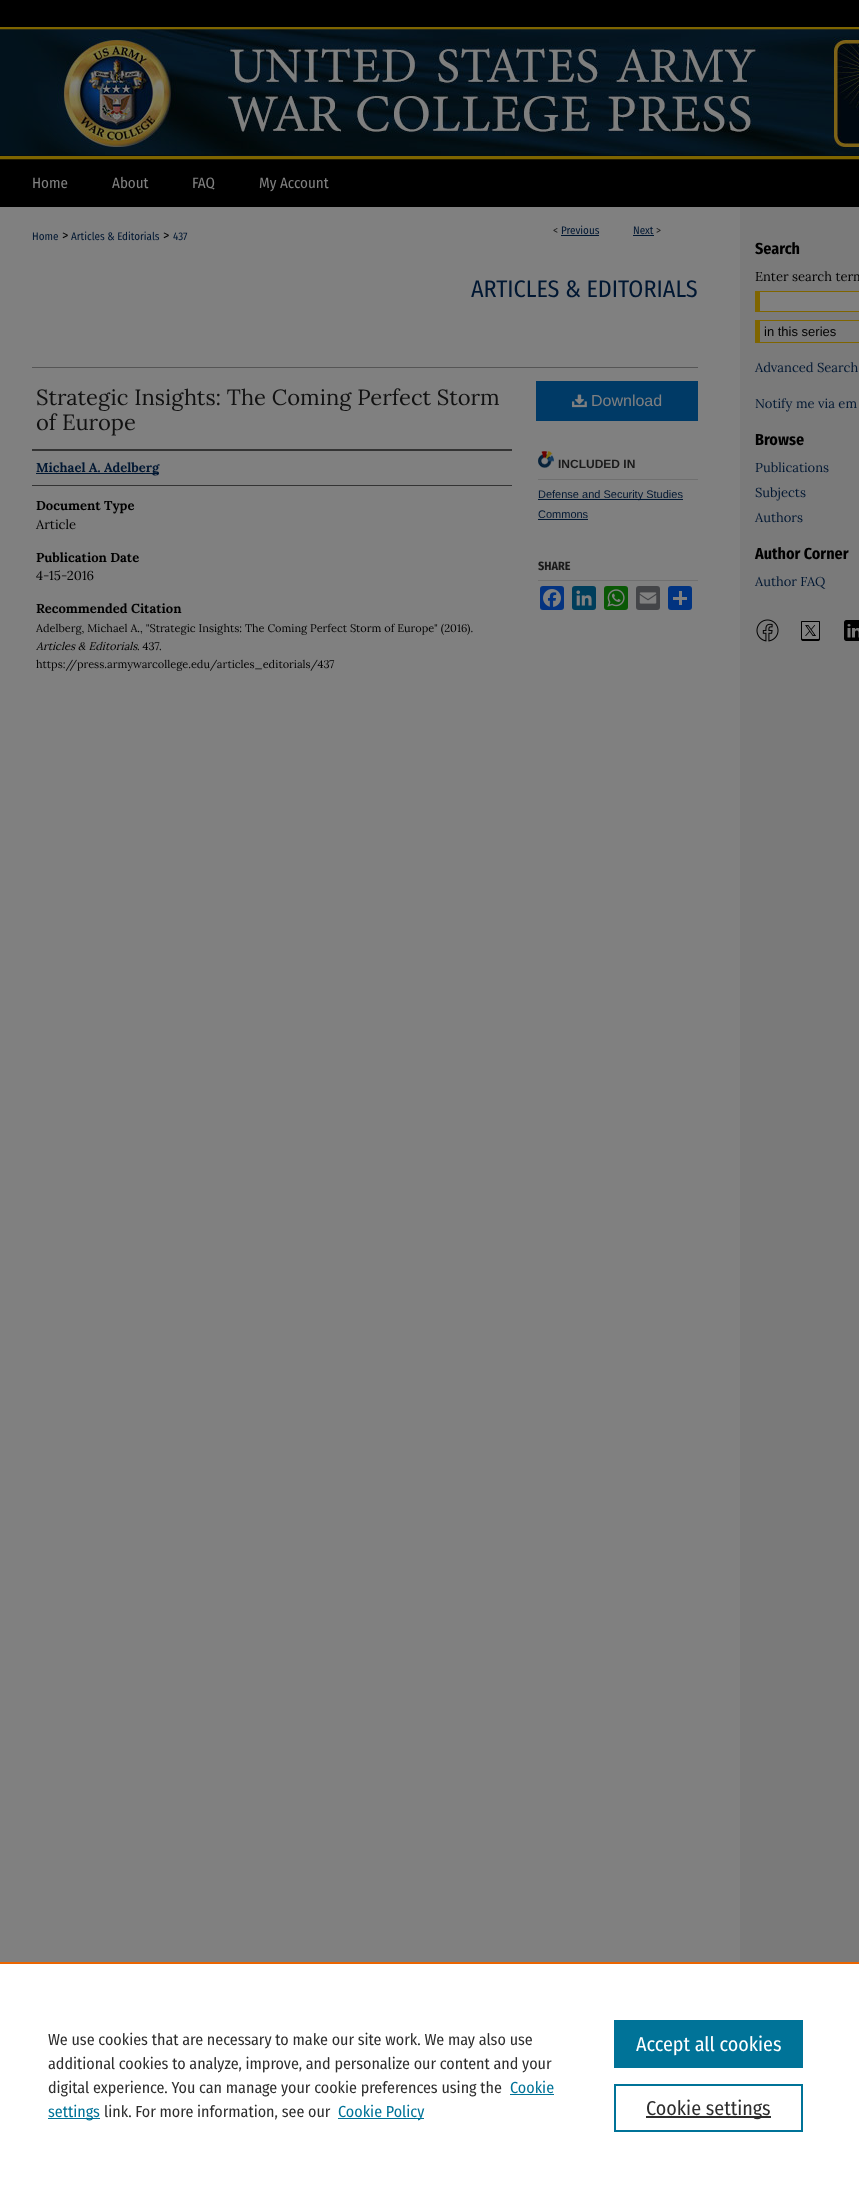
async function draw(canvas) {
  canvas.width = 859
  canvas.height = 2188
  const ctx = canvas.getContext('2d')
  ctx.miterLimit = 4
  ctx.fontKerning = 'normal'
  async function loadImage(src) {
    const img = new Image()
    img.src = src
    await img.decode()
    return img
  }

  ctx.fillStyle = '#fff'
  ctx.fillRect(0, 0, 859, 2188)
  ctx.drawImage(await loadImage('image0.png'), 0, 160, 859, 47)
  ctx.fillStyle = '#000'
  ctx.fillRect(0, 0, 859, 27)
  ctx.drawImage(await loadImage('image1.png'), 0, 27, 859, 133)
  ctx.font = '15px Fira Sans Condensed'
  ctx.fillStyle = '#808080'
  ctx.fillText('Home', 32, 188)
  ctx.fillText('About', 112, 188)
  ctx.fillText('FAQ', 192, 188)
  ctx.fillText('My Account', 259, 188)
  ctx.fillStyle = '#7a7a7a'
  ctx.fillRect(740, 207, 119, 1755)
  ctx.fillStyle = '#808080'
  ctx.fillRect(0, 207, 740, 1755)
  ctx.font = '11px Fira Sans Condensed'
  ctx.fillStyle = '#111'
  ctx.fillText('<', 553, 234)
  ctx.fillStyle = '#001732'
  ctx.fillText('Previous', 561, 234)
  ctx.fillRect(561, 235, 38, 1)
  ctx.fillText('Next', 633, 234)
  ctx.fillRect(633, 235, 21, 1)
  ctx.fillStyle = '#111'
  ctx.fillText('>', 656, 234)
  ctx.fillStyle = '#001732'
  ctx.fillText('Home', 32, 240)
  ctx.font = '14px Fira Sans Condensed'
  ctx.fillStyle = '#000'
  ctx.fillText('>', 62, 240)
  ctx.font = '11px Fira Sans Condensed'
  ctx.fillStyle = '#001732'
  ctx.fillText('Articles & Editorials', 71, 240)
  ctx.font = '14px Fira Sans Condensed'
  ctx.fillStyle = '#000'
  ctx.fillText('>', 163, 240)
  ctx.font = '11px Fira Sans Condensed'
  ctx.fillStyle = '#001732'
  ctx.fillText('437', 173, 240)
  ctx.font = '24px Fira Sans Condensed'
  ctx.fillText('ARTICLES & EDITORIALS', 471, 297)
  ctx.fillStyle = '#555'
  ctx.fillRect(32, 367, 666, 1)
  ctx.font = '22px Lora'
  ctx.fillStyle = '#111'
  ctx.fillText('Strategic Insights: The Coming Perfect Storm', 36, 405)
  ctx.fillText('of Europe', 36, 430)
  ctx.fillStyle = '#333'
  ctx.fillRect(32, 449, 480, 2)
  ctx.fillRect(32, 485, 480, 1)
  ctx.fillStyle = '#001732'
  ctx.fillRect(36, 473, 123, 1)
  ctx.font = 'bold 13px Lora'
  ctx.fillText('Michael A. Adelberg', 36, 472)
  ctx.fillStyle = '#000'
  ctx.fillText('Document Type', 36, 510)
  ctx.font = '13px Lora'
  ctx.fillText('Article', 36, 529)
  ctx.font = 'bold 13px Lora'
  ctx.fillText('Publication Date', 36, 562)
  ctx.font = '13px Lora'
  ctx.fillText('4-15-2016', 36, 580)
  ctx.font = 'bold 13px Lora'
  ctx.fillText('Recommended Citation', 36, 613)
  ctx.font = '11px Lora'
  ctx.fillText('Adelberg, Michael A., "Strategic Insights: The Coming Perfect Storm of Europe" (2016).', 36, 632)
  ctx.font = 'italic 11px Lora'
  ctx.fillText('Articles & Editorials', 36, 650)
  ctx.font = '11px Lora'
  ctx.fillText('. 437.', 137, 650)
  ctx.fillText('https://press.armywarcollege.edu/articles_editorials/437', 36, 668)
  ctx.fillStyle = '#003a66'
  ctx.fillRect(536, 381, 162, 40)
  ctx.drawImage(await loadImage('image2.png'), 572, 394, 15, 14)
  ctx.font = '16px Liberation Sans'
  ctx.fillStyle = '#808080'
  ctx.fillText('Download', 591, 406)
  ctx.drawImage(await loadImage('image3.png'), 538, 451, 16, 17)
  ctx.fillStyle = '#6f6f6f'
  ctx.fillRect(538, 479, 160, 1)
  ctx.font = 'bold 12px Liberation Sans'
  ctx.fillStyle = '#1a1a1a'
  ctx.fillText('INCLUDED IN', 558, 468)
  ctx.fillStyle = '#001732'
  ctx.fillRect(538, 499, 145, 1)
  ctx.font = '11px Liberation Sans'
  ctx.fillText('Defense and Security Studies', 538, 498)
  ctx.fillText('Commons', 538, 518)
  ctx.fillRect(538, 519, 50, 1)
  ctx.fillStyle = '#6f6f6f'
  ctx.fillRect(538, 580, 160, 1)
  ctx.font = 'bold 12px Fira Sans Condensed'
  ctx.fillStyle = '#1a1a1a'
  ctx.fillText('SHARE', 538, 570)
  ctx.fillStyle = '#043380'
  ctx.beginPath()
  ctx.roundRect(540, 586, 24, 24, 3)
  ctx.fill()
  ctx.drawImage(await loadImage('image4.png'), 543, 589, 18, 18)
  ctx.fillStyle = '#003e5b'
  ctx.beginPath()
  ctx.roundRect(572, 586, 24, 24, 3)
  ctx.fill()
  ctx.drawImage(await loadImage('image5.png'), 576, 590, 16, 16)
  ctx.fillStyle = '#095805'
  ctx.beginPath()
  ctx.roundRect(604, 586, 24, 24, 3)
  ctx.fill()
  ctx.drawImage(await loadImage('image6.png'), 607, 589, 18, 18)
  ctx.fillStyle = '#444548'
  ctx.beginPath()
  ctx.roundRect(636, 586, 24, 24, 3)
  ctx.fill()
  ctx.drawImage(await loadImage('image7.png'), 639, 592, 18, 12)
  ctx.fillStyle = '#013380'
  ctx.beginPath()
  ctx.roundRect(668, 586, 24, 24, 3)
  ctx.fill()
  ctx.fillStyle = '#808080'
  ctx.fillRect(679, 591, 3, 14)
  ctx.fillRect(673, 597, 14, 3)
  ctx.font = 'bold 16px Fira Sans Condensed'
  ctx.fillStyle = '#000'
  ctx.fillText('Search', 755, 254)
  ctx.font = '13px Lora'
  ctx.fillText('Enter search term', 755, 281)
  ctx.fillStyle = '#808080'
  ctx.fillRect(760, 292, 99, 19)
  ctx.fillStyle = '#7f6500'
  ctx.fillRect(755, 291, 104, 1)
  ctx.fillRect(755, 311, 104, 1)
  ctx.fillRect(755, 291, 5, 21)
  ctx.fillRect(755, 320, 104, 1)
  ctx.fillRect(755, 342, 104, 1)
  ctx.fillRect(755, 320, 5, 23)
  ctx.font = '13px Liberation Sans'
  ctx.fillStyle = '#000'
  ctx.fillText('in this series', 764, 336)
  ctx.font = '13px Lora'
  ctx.fillStyle = '#001732'
  ctx.fillText('Advanced Search', 755, 372)
  ctx.fillText('Notify me via em', 755, 408)
  ctx.font = 'bold 16px Fira Sans Condensed'
  ctx.fillStyle = '#000'
  ctx.fillText('Browse', 755, 445)
  ctx.font = '13px Lora'
  ctx.fillStyle = '#001732'
  ctx.fillText('Publications', 755, 472)
  ctx.fillText('Subjects', 755, 497)
  ctx.fillText('Authors', 755, 522)
  ctx.font = 'bold 16px Fira Sans Condensed'
  ctx.fillStyle = '#000'
  ctx.fillText('Author Corner', 755, 559)
  ctx.font = '13px Lora'
  ctx.fillStyle = '#001732'
  ctx.fillText('Author FAQ', 755, 586)
  ctx.drawImage(await loadImage('image8.png'), 756, 619, 23, 23)
  ctx.drawImage(await loadImage('image9.png'), 801, 621, 19, 20)
  ctx.drawImage(await loadImage('image10.png'), 844, 620, 15, 21)
  ctx.fillStyle = '#eb6500'
  ctx.fillRect(0, 1962, 859, 2)
  ctx.font = '16px Fira Sans Condensed'
  ctx.fillStyle = '#2e2e2e'
  ctx.fillText('We use cookies that are necessary to make our site work. We may also use', 48, 2045)
  ctx.fillText('additional cookies to analyze, improve, and personalize our content and your', 48, 2069)
  ctx.fillText('digital experience. You can manage your cookie preferences using the', 48, 2093)
  ctx.fillStyle = '#007398'
  ctx.fillText('Cookie', 510, 2093)
  ctx.fillRect(510, 2094, 44, 1)
  ctx.fillRect(48, 2118, 52, 1)
  ctx.fillText('settings', 48, 2117)
  ctx.fillStyle = '#2e2e2e'
  ctx.fillText('link. For more information, see our', 104, 2117)
  ctx.fillStyle = '#007398'
  ctx.fillRect(338, 2118, 86, 1)
  ctx.fillText('Cookie Policy', 338, 2117)
  ctx.fillRect(614, 2020, 189, 48)
  ctx.font = '20px Fira Sans Condensed'
  ctx.fillStyle = '#fff'
  ctx.fillText('Accept all cookies', 636, 2051)
  ctx.strokeStyle = '#007398'
  ctx.lineWidth = 2
  ctx.strokeRect(615, 2085, 187, 46)
  ctx.fillStyle = '#2e2e2e'
  ctx.fillRect(646, 2116, 125, 2)
  ctx.fillText('Cookie settings', 646, 2115)
}

draw(document.querySelector('canvas'))
